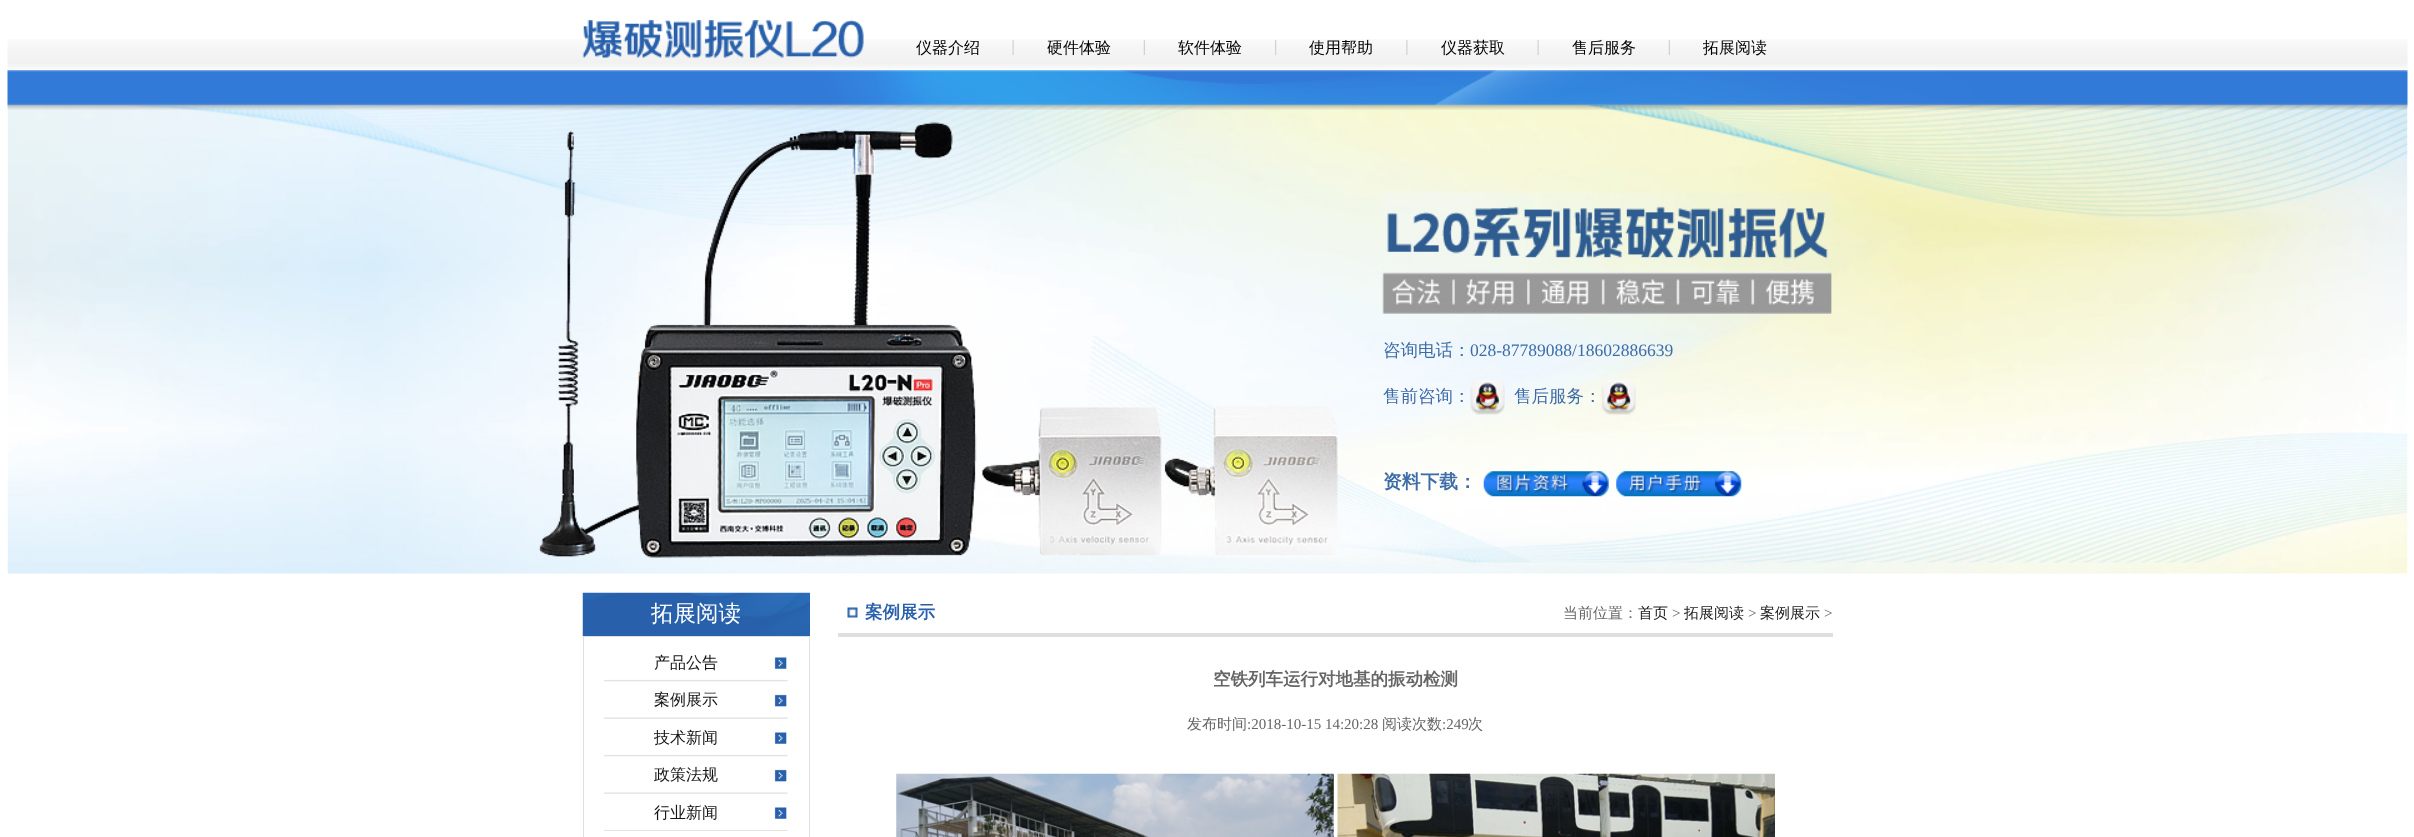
async function draw(canvas) {
  canvas.width = 2414
  canvas.height = 837
  const ctx = canvas.getContext('2d')
  ctx.miterLimit = 4
  ctx.fontKerning = 'normal'
  async function loadImage(src) {
    const img = new Image()
    img.src = src
    await img.decode()
    return img
  }

  ctx.fillStyle = '#fff'
  ctx.fillRect(0, 0, 2414, 837)
  ctx.drawImage(await loadImage('image0.png'), 7, 39, 2401, 30)
  ctx.drawImage(await loadImage('image1.png'), 582, 20, 282, 39)
  ctx.drawImage(await loadImage('image2.png'), 1012, 40, 2, 15)
  ctx.font = '500 16px WenQuanYi Zen Hei'
  ctx.fillStyle = '#000'
  ctx.fillText('仪器介绍', 916, 53)
  ctx.drawImage(await loadImage('image3.png'), 1143, 40, 2, 15)
  ctx.fillText('硬件体验', 1047, 53)
  ctx.drawImage(await loadImage('image4.png'), 1275, 40, 2, 15)
  ctx.fillText('软件体验', 1178, 53)
  ctx.drawImage(await loadImage('image5.png'), 1406, 40, 2, 15)
  ctx.fillText('使用帮助', 1309, 53)
  ctx.drawImage(await loadImage('image2.png'), 1537, 40, 2, 15)
  ctx.fillText('仪器获取', 1441, 53)
  ctx.drawImage(await loadImage('image3.png'), 1668, 40, 2, 15)
  ctx.fillText('售后服务', 1572, 53)
  ctx.fillText('拓展阅读', 1703, 53)
  ctx.drawImage(await loadImage('image7.png'), 7, 105, 2401, 469)
  ctx.drawImage(await loadImage('image6.png'), 7, 70, 2401, 40)
  ctx.drawImage(await loadImage('image8.png'), 1382, 193, 450, 122)
  ctx.font = '500 17.5px WenQuanYi Zen Hei'
  ctx.fillStyle = '#3d6ca7'
  ctx.fillText('咨询电话：', 1383, 356)
  ctx.font = '17.5px Liberation Serif'
  ctx.fillText('028-87789088/18602886639', 1470, 356)
  ctx.font = '500 17.5px WenQuanYi Zen Hei'
  ctx.fillText('售前咨询：', 1383, 402)
  ctx.drawImage(await loadImage('image9.png'), 1470, 380, 35, 35)
  ctx.fillText('售后服务：', 1514, 402)
  ctx.drawImage(await loadImage('image10.png'), 1601, 380, 35, 35)
  ctx.font = 'bold 18.75px WenQuanYi Zen Hei'
  ctx.fillText('资料下载：', 1383, 488)
  ctx.drawImage(await loadImage('image11.png'), 1483, 471, 126, 26)
  ctx.drawImage(await loadImage('image12.png'), 1616, 471, 126, 26)
  ctx.drawImage(await loadImage('image13.png'), 582, 592, 228, 45)
  ctx.font = '500 22.5px WenQuanYi Zen Hei'
  ctx.fillStyle = '#fff'
  ctx.fillText('拓展阅读', 651, 621)
  ctx.strokeStyle = '#dfdfdf'
  ctx.strokeRect(583.5, 636.5, 226, 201)
  ctx.drawImage(await loadImage('image14.png'), 604, 657, 184, 25)
  ctx.font = '500 16px WenQuanYi Zen Hei'
  ctx.fillStyle = '#141414'
  ctx.fillText('产品公告', 654, 668)
  ctx.drawImage(await loadImage('image15.png'), 604, 694, 184, 25)
  ctx.fillText('案例展示', 654, 705)
  ctx.drawImage(await loadImage('image14.png'), 604, 732, 184, 25)
  ctx.fillText('技术新闻', 654, 743)
  ctx.drawImage(await loadImage('image15.png'), 604, 769, 184, 25)
  ctx.fillText('政策法规', 654, 780)
  ctx.drawImage(await loadImage('image16.png'), 604, 807, 184, 24)
  ctx.fillText('行业新闻', 654, 818)
  ctx.drawImage(await loadImage('image17.png'), 847, 607, 11, 11)
  ctx.fillStyle = '#dfdfdf'
  ctx.fillRect(838, 633, 995, 4)
  ctx.font = 'bold 17.5px WenQuanYi Zen Hei'
  ctx.fillStyle = '#2860ab'
  ctx.fillText('案例展示', 865, 618)
  ctx.font = '500 15px WenQuanYi Zen Hei'
  ctx.fillStyle = '#666'
  ctx.fillText('当前位置：', 1563, 618)
  ctx.fillStyle = '#212122'
  ctx.fillText('首页', 1638, 618)
  ctx.font = '15px Liberation Serif'
  ctx.fillStyle = '#666'
  ctx.fillText('>', 1672, 618)
  ctx.font = '500 15px WenQuanYi Zen Hei'
  ctx.fillStyle = '#212122'
  ctx.fillText('拓展阅读', 1684, 618)
  ctx.font = '15px Liberation Serif'
  ctx.fillStyle = '#666'
  ctx.fillText('>', 1748, 618)
  ctx.font = '500 15px WenQuanYi Zen Hei'
  ctx.fillStyle = '#212122'
  ctx.fillText('案例展示', 1760, 618)
  ctx.font = '15px Liberation Serif'
  ctx.fillStyle = '#666'
  ctx.fillText('>', 1824, 618)
  ctx.font = 'bold 17.5px WenQuanYi Zen Hei'
  ctx.fillText('空铁列车运行对地基的振动检测', 1213, 685)
  ctx.font = '500 15px WenQuanYi Zen Hei'
  ctx.fillText('发布时间', 1187, 729)
  ctx.font = '15px Liberation Serif'
  ctx.fillText(':2018-10-15 14:20:28', 1247, 729)
  ctx.font = '500 15px WenQuanYi Zen Hei'
  ctx.fillText('阅读次数', 1382, 729)
  ctx.font = '15px Liberation Serif'
  ctx.fillText(':249', 1442, 729)
  ctx.font = '500 15px WenQuanYi Zen Hei'
  ctx.fillText('次', 1468, 729)
  ctx.drawImage(await loadImage('image18.png'), 896, 773, 438, 64)
  ctx.drawImage(await loadImage('image19.png'), 1337, 773, 438, 64)
}

draw(document.querySelector('canvas'))
